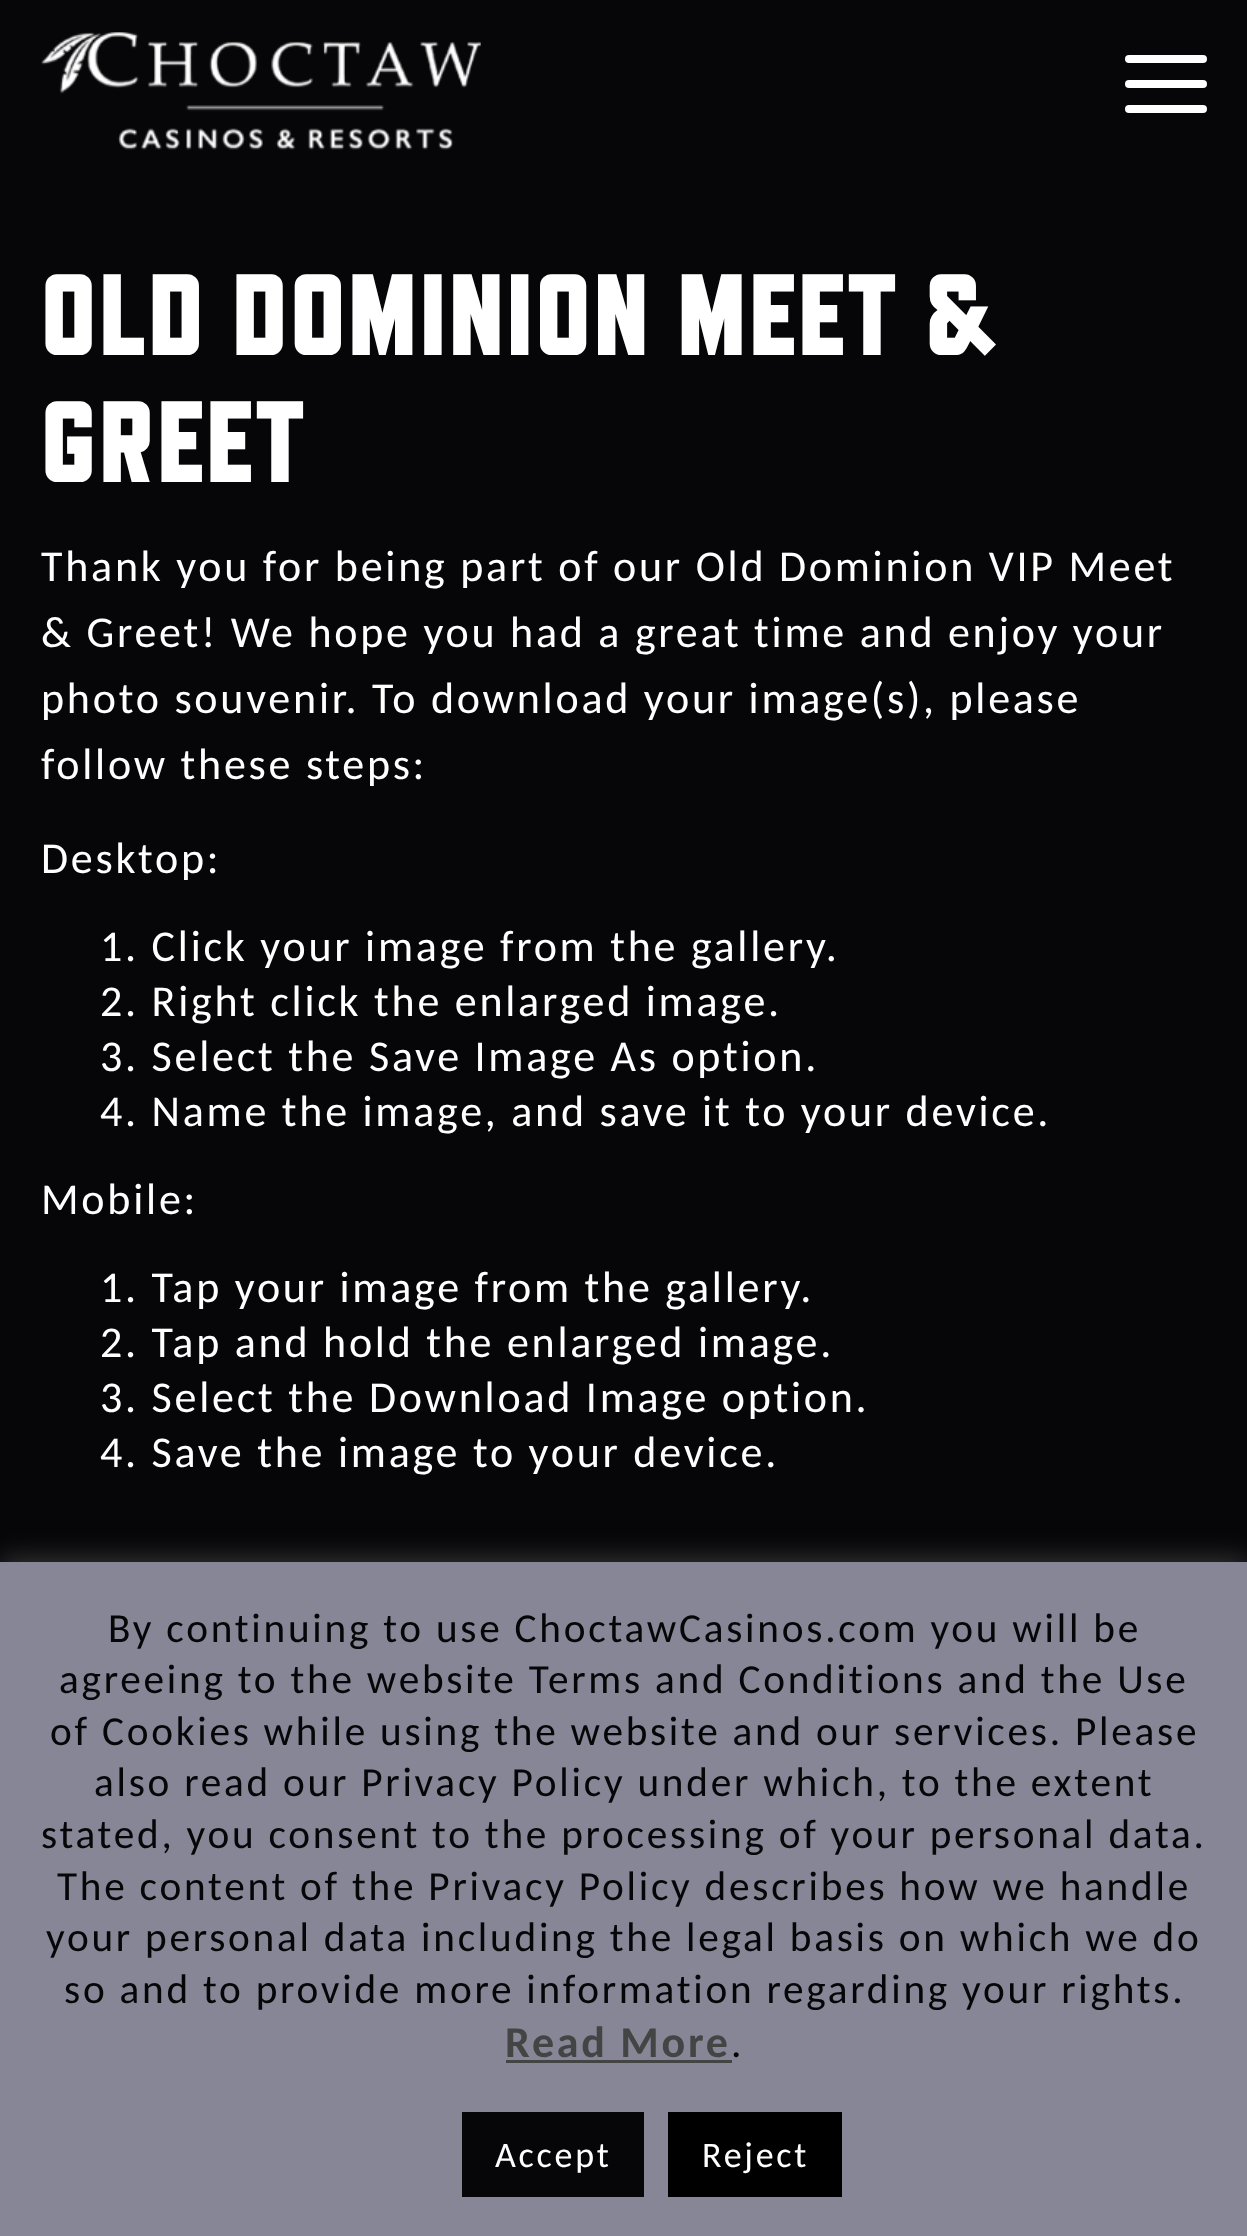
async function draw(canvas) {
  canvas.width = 1247
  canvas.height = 2236
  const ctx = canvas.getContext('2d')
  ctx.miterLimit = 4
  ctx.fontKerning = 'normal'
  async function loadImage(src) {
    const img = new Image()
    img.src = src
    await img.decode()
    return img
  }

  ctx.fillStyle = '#060608'
  ctx.fillRect(0, 0, 1247, 2236)
  ctx.drawImage(await loadImage('image0.png'), 41, 32, 440, 118)
  ctx.fillStyle = '#fff'
  ctx.beginPath()
  ctx.roundRect(1125, 55, 82, 8, 4)
  ctx.fill()
  ctx.beginPath()
  ctx.roundRect(1125, 80, 82, 8, 4)
  ctx.fill()
  ctx.beginPath()
  ctx.roundRect(1125, 105, 82, 8, 4)
  ctx.fill()
  ctx.letterSpacing = '2.75px'
  ctx.font = '900 115.5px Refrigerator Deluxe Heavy'
  ctx.fillText('OLD DOMINION MEET &', 41, 355)
  ctx.fillText('GREET', 41, 482)
  ctx.font = '44px Carlito'
  ctx.fillText('Thank you for being part of our Old Dominion VIP Meet', 41, 581)
  ctx.fillText('& Greet! We hope you had a great time and enjoy your', 41, 647)
  ctx.fillText('photo souvenir. To download your image(s), please', 41, 713)
  ctx.fillText('follow these steps:', 41, 779)
  ctx.fillText('Desktop:', 41, 873)
  ctx.fillText('1. Click your image from the gallery.', 100, 961)
  ctx.fillText('2. Right click the enlarged image.', 100, 1016)
  ctx.fillText('3. Select the Save Image As option.', 100, 1071)
  ctx.fillText('4. Name the image, and save it to your device.', 100, 1126)
  ctx.fillText('Mobile:', 41, 1214)
  ctx.fillText('1. Tap your image from the gallery.', 100, 1302)
  ctx.fillText('2. Tap and hold the enlarged image.', 100, 1357)
  ctx.fillText('3. Select the Download Image option.', 100, 1412)
  ctx.fillText('4. Save the image to your device.', 100, 1467)
  ctx.fillStyle = '#acabab4d'
  ctx.filter = 'blur(14px)'
  ctx.beginPath()
  ctx.rect(0, 1559, 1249, 677)
  ctx.fill()
  ctx.filter = 'none'
  ctx.fillStyle = '#868696'
  ctx.fillRect(0, 1562, 1247, 674)
  ctx.font = '41.25px Carlito'
  ctx.fillStyle = '#060608'
  ctx.fillText('By continuing to use ChoctawCasinos.com you will be', 108, 1642)
  ctx.fillText('agreeing to the website Terms and Conditions and the Use', 59, 1693)
  ctx.fillText('of Cookies while using the website and our services. Please', 50, 1745)
  ctx.fillText('also read our Privacy Policy under which, to the extent', 94, 1796)
  ctx.fillText('stated, you consent to the processing of your personal data.', 41, 1848)
  ctx.fillText('The content of the Privacy Policy describes how we handle', 57, 1900)
  ctx.fillText('your personal data including the legal basis on which we do', 46, 1951)
  ctx.fillText('so and to provide more information regarding your rights.', 64, 2003)
  ctx.font = 'bold 44px Carlito'
  ctx.fillStyle = '#444'
  ctx.fillText('Read More', 505, 2057)
  ctx.fillRect(506, 2060, 226, 3)
  ctx.font = '41.25px Carlito'
  ctx.fillStyle = '#060608'
  ctx.fillText('.', 731, 2057)
  ctx.fillRect(462, 2112, 182, 85)
  ctx.font = '36px Carlito'
  ctx.fillStyle = '#fff'
  ctx.fillText('Accept', 495, 2167)
  ctx.fillStyle = '#000'
  ctx.fillRect(668, 2112, 174, 85)
  ctx.fillStyle = '#fff'
  ctx.fillText('Reject', 702, 2167)
}

draw(document.querySelector('canvas'))
